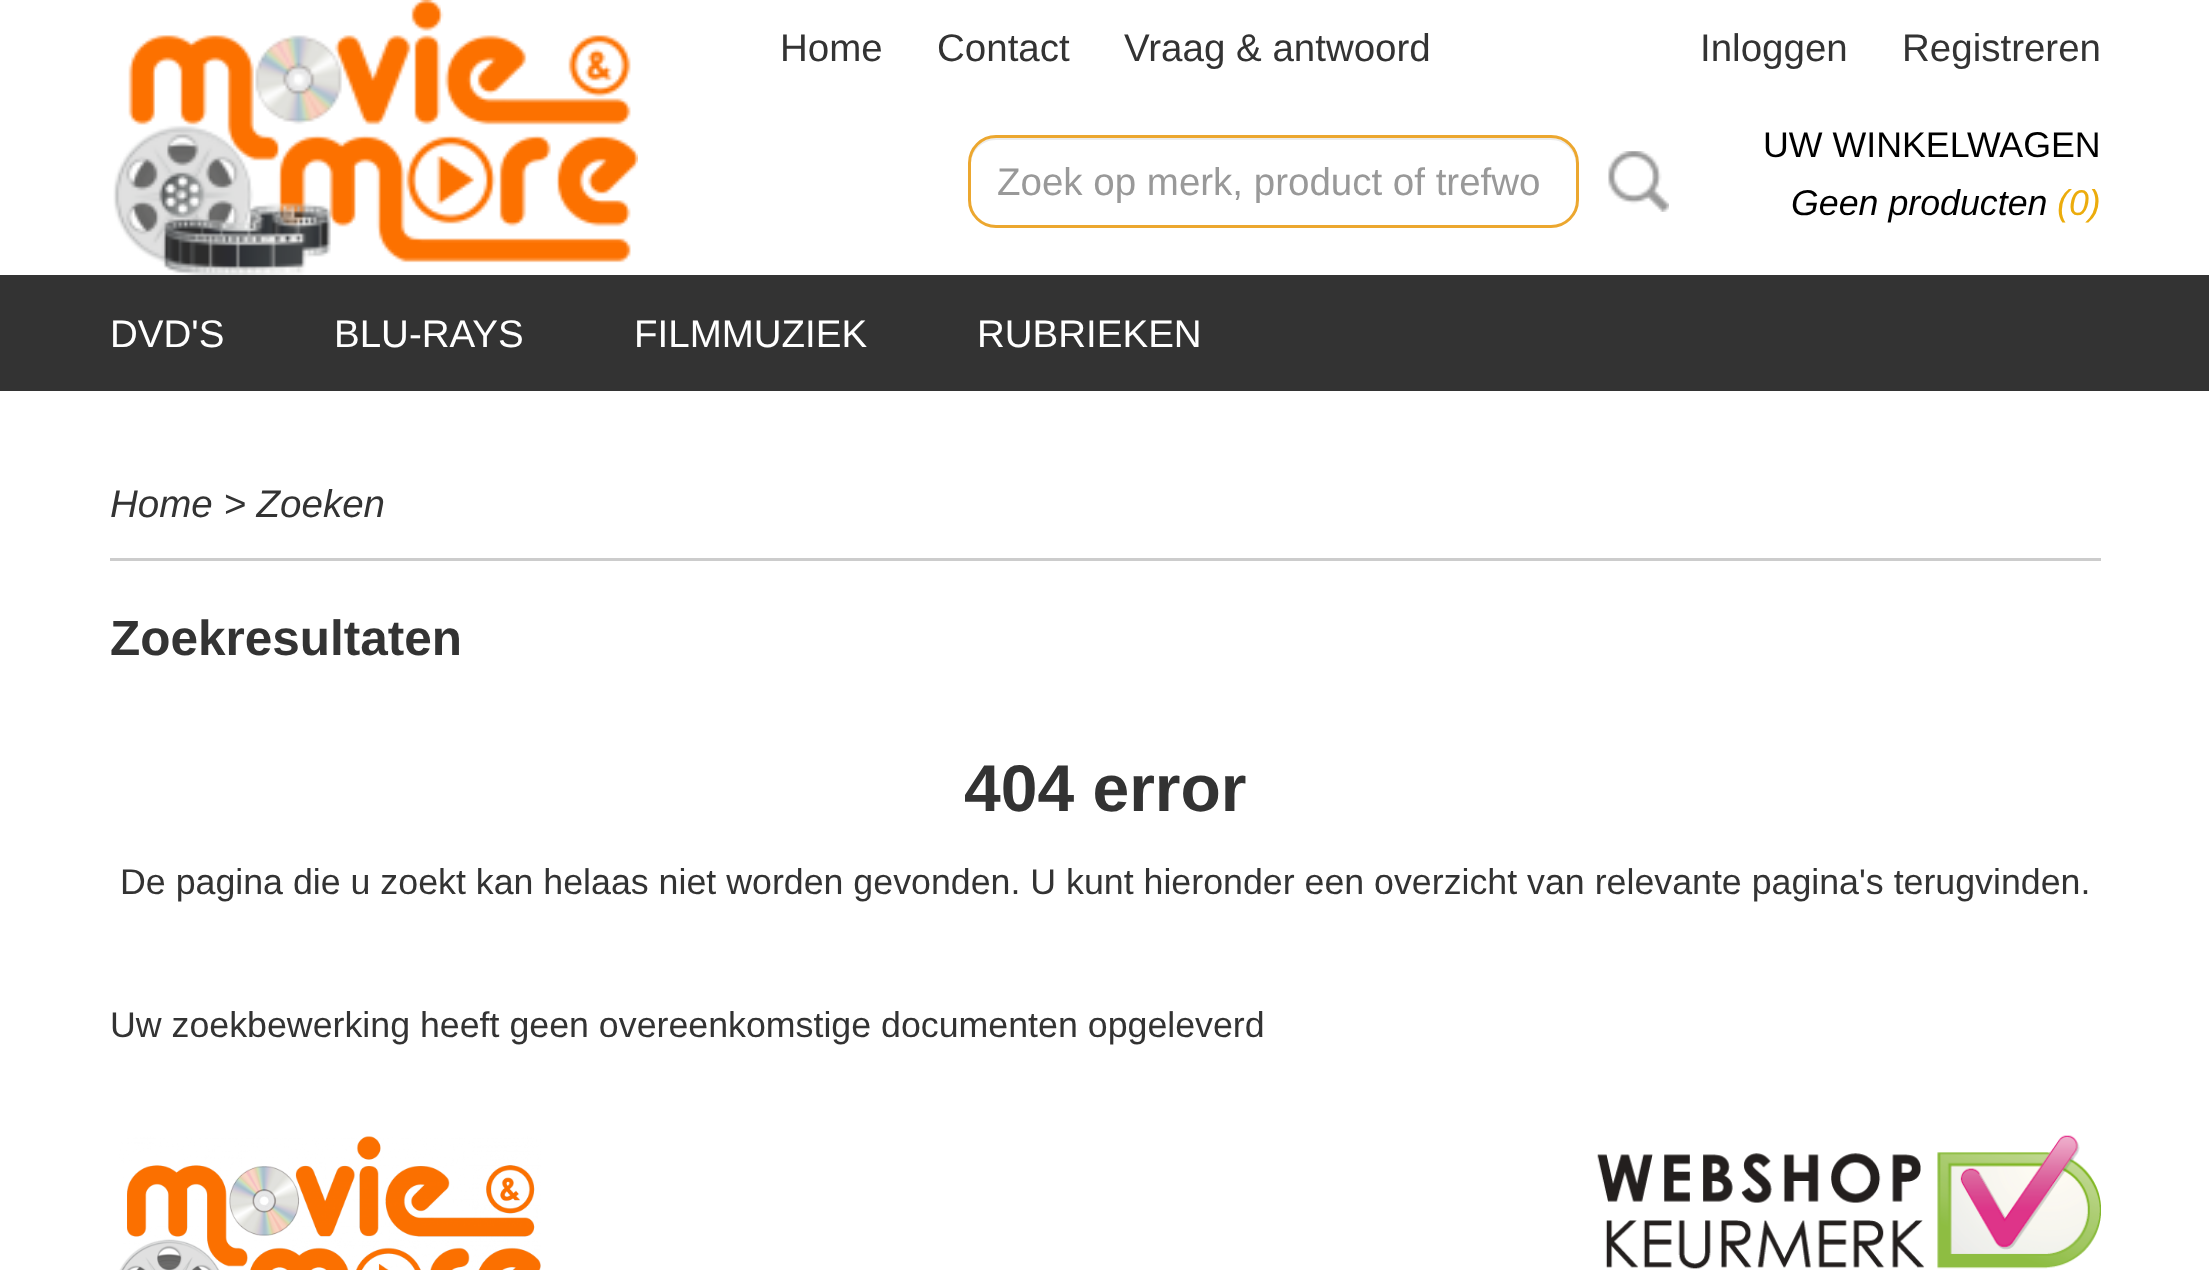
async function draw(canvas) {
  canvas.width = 2209
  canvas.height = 1270
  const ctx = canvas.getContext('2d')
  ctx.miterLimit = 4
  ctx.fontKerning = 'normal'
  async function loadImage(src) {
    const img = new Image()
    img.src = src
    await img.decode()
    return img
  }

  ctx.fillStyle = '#fff'
  ctx.fillRect(0, 0, 2209, 1270)
  ctx.drawImage(await loadImage('image0.png'), 113, 0, 525, 275)
  ctx.font = '38.5px Liberation Sans'
  ctx.fillStyle = '#333'
  ctx.fillText('Home', 780, 61)
  ctx.fillText('Contact', 937, 61)
  ctx.fillText('Vraag & antwoord', 1124, 61)
  ctx.fillText('Inloggen', 1700, 61)
  ctx.fillText('Registreren', 1902, 61)
  ctx.font = '35.75px Liberation Sans'
  ctx.fillStyle = '#000'
  ctx.fillText('UW WINKELWAGEN', 1763, 157)
  ctx.font = 'italic 35.75px Liberation Sans'
  ctx.fillText('Geen producten', 1791, 215)
  ctx.fillStyle = '#ecac0c'
  ctx.fillText('(0)', 2057, 215)
  ctx.fillStyle = '#ececec'
  ctx.beginPath()
  ctx.moveTo(996, 140)
  ctx.lineTo(1551, 140)
  ctx.bezierCurveTo(1565, 140, 1576, 151, 1576, 165)
  ctx.lineTo(1576, 163)
  ctx.bezierCurveTo(1576, 149, 1565, 138, 1551, 138)
  ctx.lineTo(996, 138)
  ctx.bezierCurveTo(982, 138, 971, 149, 971, 163)
  ctx.lineTo(971, 165)
  ctx.bezierCurveTo(971, 151, 982, 140, 996, 140)
  ctx.closePath()
  ctx.fill()
  ctx.beginPath()
  ctx.roundRect(969.5, 136.5, 608, 90, 26.5)
  ctx.strokeStyle = '#eca72f'
  ctx.lineWidth = 3
  ctx.stroke()
  ctx.font = '38.5px Liberation Sans'
  ctx.fillStyle = '#999'
  ctx.fillText('Zoek op merk, product of trefwo', 997, 195)
  ctx.drawImage(await loadImage('image1.png'), 1608, 151, 61, 61)
  ctx.fillStyle = '#333'
  ctx.fillRect(0, 275, 2209, 116)
  ctx.fillStyle = '#fff'
  ctx.fillText('DVD\'S', 110, 347)
  ctx.fillText('BLU-RAYS', 334, 347)
  ctx.fillText('FILMMUZIEK', 634, 347)
  ctx.fillText('RUBRIEKEN', 977, 347)
  ctx.fillStyle = '#ccc'
  ctx.fillRect(110, 558, 1991, 3)
  ctx.font = 'italic 38.5px Liberation Sans'
  ctx.fillStyle = '#333'
  ctx.fillText('Home > Zoeken', 110, 517)
  ctx.font = 'bold 49.5px Liberation Sans'
  ctx.fillText('Zoekresultaten', 110, 655)
  ctx.font = 'bold 66px Liberation Sans'
  ctx.fillText('404 error', 964, 811)
  ctx.font = '35.75px Liberation Sans'
  ctx.fillText('De pagina die u zoekt kan helaas niet worden gevonden. U kunt hieronder een overzicht van relevante pagina\'s terugvinden.', 120, 894)
  ctx.fillText('Uw zoekbewerking heeft geen overeenkomstige documenten opgeleverd', 110, 1037)
  ctx.drawImage(await loadImage('image2.png'), 119, 1136, 422, 134)
  ctx.drawImage(await loadImage('image3.png'), 1597, 1135, 504, 134)
}

draw(document.querySelector('canvas'))
